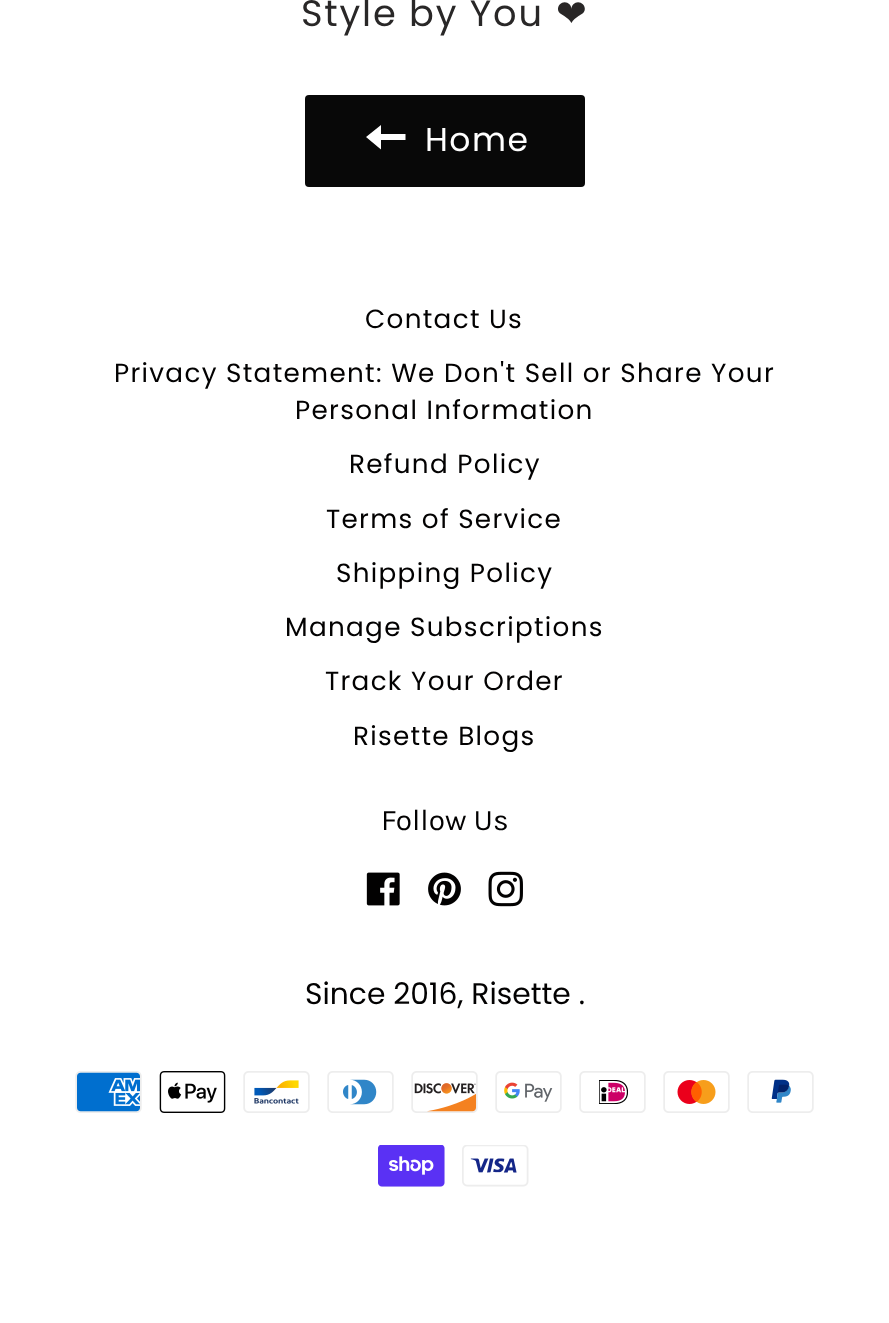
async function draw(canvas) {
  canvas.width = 889
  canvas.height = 1323
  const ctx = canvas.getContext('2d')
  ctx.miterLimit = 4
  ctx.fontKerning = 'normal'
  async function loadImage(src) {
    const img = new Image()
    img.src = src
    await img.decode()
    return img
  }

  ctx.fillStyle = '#fff'
  ctx.fillRect(0, 0, 889, 1323)
  ctx.letterSpacing = '1.8px'
  ctx.font = '36.75px Poppins'
  ctx.fillStyle = '#292727'
  ctx.fillText('Style by You', 301, 26)
  ctx.font = '36.75px DejaVu Sans'
  ctx.fillText('❤', 556, 26)
  ctx.fillStyle = '#080808'
  ctx.beginPath()
  ctx.roundRect(305, 95, 280, 92, 4)
  ctx.fill()
  ctx.fillStyle = '#fff'
  ctx.beginPath()
  ctx.moveTo(381, 134)
  ctx.lineTo(381, 125)
  ctx.lineTo(366, 137)
  ctx.lineTo(381, 149.5)
  ctx.lineTo(381, 140)
  ctx.lineTo(405.5, 140)
  ctx.lineTo(405.5, 134)
  ctx.closePath()
  ctx.fill()
  ctx.letterSpacing = '1.5px'
  ctx.font = '33px Poppins'
  ctx.fillText('Home', 425, 151)
  ctx.letterSpacing = '1.3px'
  ctx.font = '26.25px Poppins'
  ctx.fillStyle = '#020101'
  ctx.fillText('Contact Us', 365, 328)
  ctx.fillText('Privacy Statement: We Don\'t Sell or Share Your', 114, 382)
  ctx.fillText('Personal Information', 295, 419)
  ctx.fillText('Refund Policy', 349, 473)
  ctx.fillText('Terms of Service', 326, 528)
  ctx.fillText('Shipping Policy', 336, 582)
  ctx.fillText('Manage Subscriptions', 285, 636)
  ctx.fillText('Track Your Order', 325, 690)
  ctx.fillText('Risette Blogs', 353, 745)
  ctx.letterSpacing = '0px'
  ctx.font = '29.75px Karla'
  ctx.fillText('Follow Us', 381, 830)
  ctx.drawImage(await loadImage('image0.png'), 366, 872, 34, 34)
  ctx.drawImage(await loadImage('image1.png'), 428, 872, 33, 34)
  ctx.drawImage(await loadImage('image2.png'), 488, 871, 35, 36)
  ctx.font = '29.75px Poppins'
  ctx.fillText('Since 2016, Risette .', 305, 1004)
  ctx.drawImage(await loadImage('image3.png'), 75, 1071, 67, 42)
  ctx.drawImage(await loadImage('image4.png'), 159, 1071, 67, 42)
  ctx.drawImage(await loadImage('image5.png'), 243, 1071, 67, 42)
  ctx.drawImage(await loadImage('image6.png'), 327, 1071, 67, 42)
  ctx.drawImage(await loadImage('image7.png'), 411, 1071, 67, 42)
  ctx.drawImage(await loadImage('image8.png'), 495, 1071, 67, 42)
  ctx.drawImage(await loadImage('image9.png'), 579, 1071, 67, 42)
  ctx.drawImage(await loadImage('image10.png'), 663, 1071, 67, 42)
  ctx.drawImage(await loadImage('image11.png'), 747, 1071, 67, 42)
  ctx.drawImage(await loadImage('image12.png'), 378, 1145, 67, 42)
  ctx.drawImage(await loadImage('image13.png'), 462, 1145, 67, 42)
}

draw(document.querySelector('canvas'))
